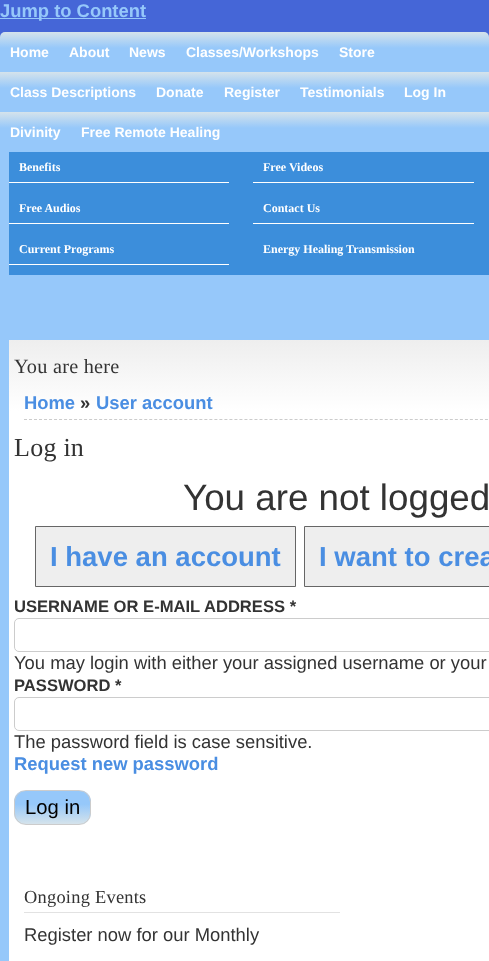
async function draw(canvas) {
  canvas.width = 489
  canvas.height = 961
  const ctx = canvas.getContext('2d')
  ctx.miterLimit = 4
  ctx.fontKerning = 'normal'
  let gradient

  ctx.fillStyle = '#4566d7'
  ctx.fillRect(0, 0, 489, 961)
  ctx.fillStyle = '#96c8fa'
  ctx.fillRect(0, 18, 146, 1)
  ctx.font = 'bold 18.4px Liberation Sans'
  ctx.fillText('Jump to Content', 0, 17)
  gradient = ctx.createLinearGradient(0, 32, 0, 72)
  gradient.addColorStop(0, '#d5e3eb')
  gradient.addColorStop(0.4, '#96c8fa')
  ctx.fillStyle = gradient
  ctx.beginPath()
  ctx.roundRect(0, 32, 489, 40, [5, 5, 0, 0])
  ctx.fill()
  ctx.strokeStyle = '#96c8fa'
  ctx.lineWidth = 9
  ctx.strokeRect(4.5, 106.5, 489, 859)
  gradient = ctx.createLinearGradient(0, 72, 0, 112)
  gradient.addColorStop(0, '#d5e3eb')
  gradient.addColorStop(0.4, '#96c8fa')
  ctx.fillStyle = gradient
  ctx.fillRect(0, 72, 489, 40)
  gradient = ctx.createLinearGradient(0, 112, 0, 152)
  gradient.addColorStop(0, '#d5e3eb')
  gradient.addColorStop(0.4, '#96c8fa')
  ctx.fillStyle = gradient
  ctx.fillRect(0, 112, 489, 40)
  ctx.font = 'bold 14px Liberation Sans'
  ctx.fillStyle = '#fff'
  ctx.fillText('Home', 10, 57)
  ctx.fillText('About', 69, 57)
  ctx.fillText('News', 129, 57)
  ctx.fillText('Classes/Workshops', 186, 57)
  ctx.fillText('Store', 339, 57)
  ctx.fillText('Class Descriptions', 10, 97)
  ctx.fillText('Donate', 156, 97)
  ctx.fillText('Register', 224, 97)
  ctx.fillText('Testimonials', 300, 97)
  ctx.fillText('Log In', 404, 97)
  ctx.fillText('Divinity', 10, 137)
  ctx.fillText('Free Remote Healing', 81, 137)
  ctx.fillStyle = '#96c8fa'
  ctx.fillRect(9, 275, 480, 65)
  ctx.fillStyle = '#3c8edb'
  ctx.fillRect(9, 152, 480, 123)
  ctx.fillStyle = '#fff'
  ctx.fillRect(9, 182, 220, 1)
  ctx.font = 'bold 12px Liberation Serif'
  ctx.fillText('Benefits', 19, 171)
  ctx.fillRect(253, 182, 221, 1)
  ctx.fillText('Free Videos', 263, 171)
  ctx.fillRect(9, 223, 220, 1)
  ctx.fillText('Free Audios', 19, 212)
  ctx.fillRect(253, 223, 221, 1)
  ctx.fillText('Contact Us', 263, 212)
  ctx.fillRect(9, 264, 220, 1)
  ctx.fillText('Current Programs', 19, 253)
  ctx.fillText('Energy Healing Transmission', 263, 253)
  gradient = ctx.createLinearGradient(9, 340, 9, 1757)
  gradient.addColorStop(0, '#eee')
  gradient.addColorStop(0.05, '#fff')
  ctx.fillStyle = gradient
  ctx.fillRect(9, 340, 480, 621)
  ctx.letterSpacing = '0.25px'
  ctx.font = '20.25px Liberation Serif'
  ctx.fillStyle = '#333'
  ctx.fillText('You are here', 14, 373)
  ctx.beginPath()
  ctx.moveTo(24, 419.5)
  ctx.lineTo(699, 419.5)
  ctx.strokeStyle = '#ccc'
  ctx.lineWidth = 1
  ctx.setLineDash([3, 2.01])
  ctx.stroke()
  ctx.letterSpacing = '0px'
  ctx.font = 'bold 18.4px Liberation Sans'
  ctx.fillStyle = '#4a8ee2'
  ctx.fillText('Home', 24, 409)
  ctx.fillStyle = '#333'
  ctx.fillText('»', 80, 409)
  ctx.fillStyle = '#4a8ee2'
  ctx.fillText('User account', 96, 409)
  ctx.letterSpacing = '0.25px'
  ctx.font = '26px Liberation Serif'
  ctx.fillStyle = '#333'
  ctx.fillText('Log in', 14, 456)
  ctx.letterSpacing = '0px'
  ctx.font = '36.75px Liberation Sans'
  ctx.fillText('You are not logged', 183, 510)
  ctx.fillStyle = '#eee'
  ctx.beginPath()
  ctx.rect(35.5, 526.5, 260, 60)
  ctx.fill()
  ctx.strokeStyle = '#666'
  ctx.setLineDash([])
  ctx.stroke()
  ctx.font = 'bold 27.5px Liberation Sans'
  ctx.fillStyle = '#4a8ee2'
  ctx.fillText('I have an account', 50, 566)
  ctx.fillStyle = '#eee'
  ctx.beginPath()
  ctx.rect(304.5, 526.5, 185, 60)
  ctx.fill()
  ctx.stroke()
  ctx.fillStyle = '#4a8ee2'
  ctx.fillText('I want to crea', 319, 566)
  ctx.font = 'bold 16.6px Liberation Sans'
  ctx.fillStyle = '#333'
  ctx.fillText('USERNAME OR E-MAIL ADDRESS *', 14, 612)
  ctx.beginPath()
  ctx.roundRect(14.5, 618.5, 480, 33, 4.5)
  ctx.strokeStyle = '#ccc'
  ctx.stroke()
  ctx.font = '18.4px Liberation Sans'
  ctx.fillText('You may login with either your assigned username or your', 14, 669)
  ctx.font = 'bold 16.6px Liberation Sans'
  ctx.fillText('PASSWORD *', 14, 691)
  ctx.beginPath()
  ctx.roundRect(14.5, 697.5, 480, 33, 4.5)
  ctx.stroke()
  ctx.font = '18.4px Liberation Sans'
  ctx.fillText('The password field is case sensitive.', 14, 748)
  ctx.font = 'bold 18.4px Liberation Sans'
  ctx.fillStyle = '#4a8ee2'
  ctx.fillText('Request new password', 14, 770)
  ctx.save()
  ctx.beginPath()
  ctx.roundRect(14, 790, 77, 35, 12)
  ctx.clip()
  gradient = ctx.createLinearGradient(15, 824, 15, 791)
  gradient.addColorStop(0, '#d5e3eb')
  gradient.addColorStop(0.6, '#96c8fa')
  ctx.fillStyle = gradient
  ctx.fillRect(14, 791, 77, 33)
  ctx.restore()
  ctx.beginPath()
  ctx.roundRect(14.5, 790.5, 76, 34, 11.5)
  ctx.stroke()
  ctx.font = '20.25px Liberation Sans'
  ctx.fillStyle = '#000'
  ctx.fillText('Log in', 25, 814)
  ctx.fillStyle = '#e2e2e2'
  ctx.fillRect(24, 912, 316, 1)
  ctx.letterSpacing = '0.25px'
  ctx.font = '18.4px Liberation Serif'
  ctx.fillStyle = '#333'
  ctx.fillText('Ongoing Events', 24, 903)
  ctx.letterSpacing = '0px'
  ctx.font = '18.4px Liberation Sans'
  ctx.fillText('Register now for our Monthly', 24, 941)
}

draw(document.querySelector('canvas'))
